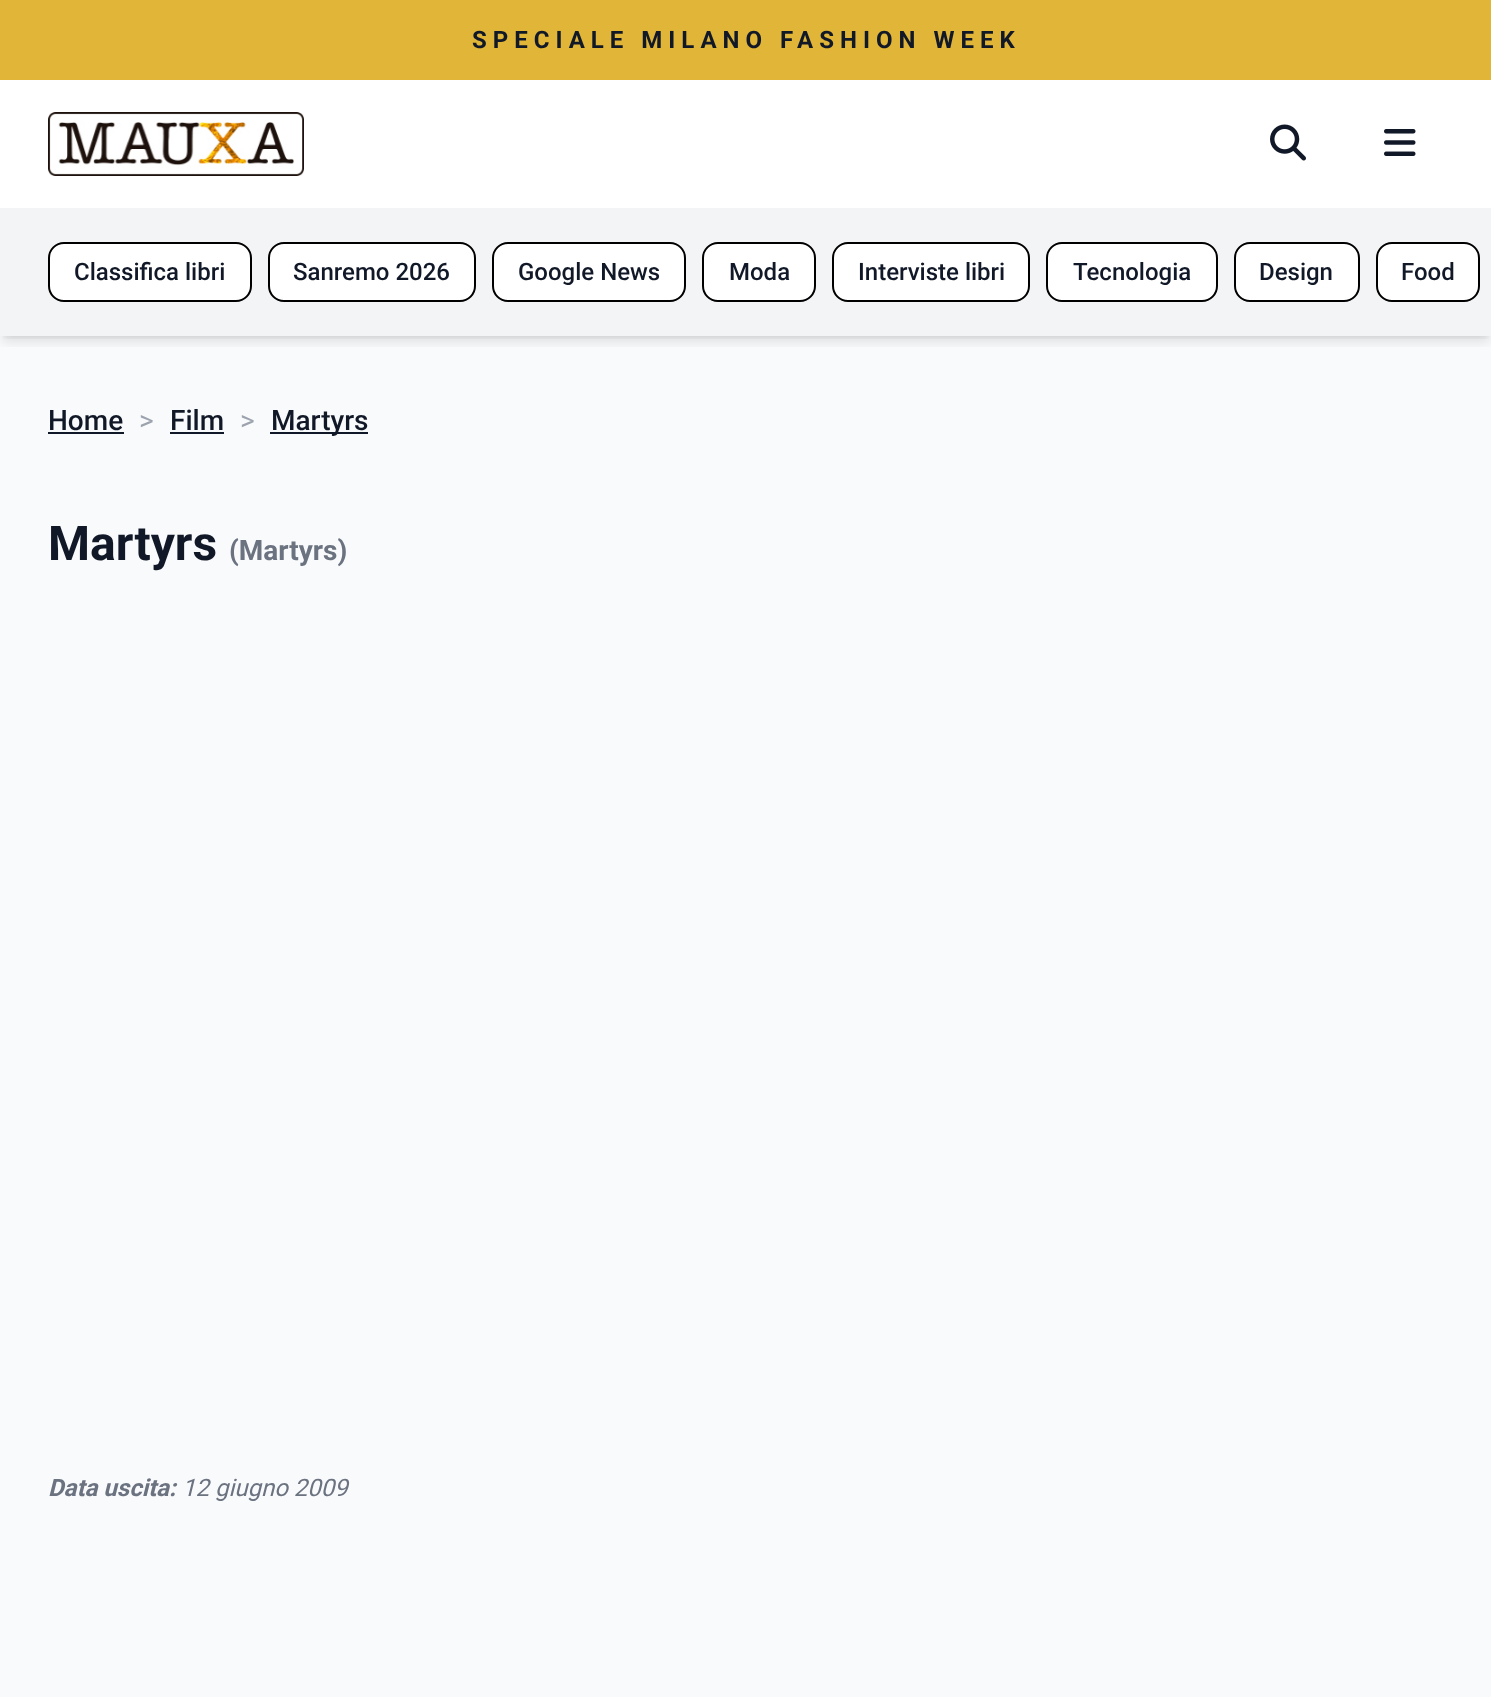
async function draw(canvas) {
  canvas.width = 1491
  canvas.height = 1697
  const ctx = canvas.getContext('2d')
  ctx.miterLimit = 4
  ctx.fontKerning = 'normal'
  async function loadImage(src) {
    const img = new Image()
    img.src = src
    await img.decode()
    return img
  }

  ctx.fillStyle = '#fff'
  ctx.fillRect(0, 0, 1491, 1697)
  ctx.fillStyle = '#e1b537'
  ctx.fillRect(0, 0, 1491, 80)
  ctx.letterSpacing = '6px'
  ctx.font = 'bold 24px Roboto'
  ctx.fillStyle = '#111827'
  ctx.fillText('SPECIALE MILANO FASHION WEEK', 472, 48)
  ctx.fillStyle = '#f9fafb'
  ctx.fillRect(0, 336, 1491, 1361)
  ctx.save()
  ctx.beginPath()
  ctx.rect(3, 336, 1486, 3)
  ctx.clip()
  ctx.fillStyle = '#0000001a'
  ctx.filter = 'blur(4px)'
  ctx.beginPath()
  ctx.rect(4, 88, 1484, 248)
  ctx.fill()
  ctx.filter = 'none'
  ctx.restore()
  ctx.save()
  ctx.beginPath()
  ctx.rect(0, 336, 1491, 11)
  ctx.clip()
  ctx.fillStyle = '#0000001a'
  ctx.filter = 'blur(6px)'
  ctx.beginPath()
  ctx.rect(2, 90, 1488, 252)
  ctx.fill()
  ctx.filter = 'none'
  ctx.restore()
  ctx.drawImage(await loadImage('image0.png'), 48, 112, 256, 64)
  ctx.drawImage(await loadImage('image1.png'), 1270, 124, 36, 37)
  ctx.drawImage(await loadImage('image2.png'), 1384, 129, 32, 27)
  ctx.fillStyle = '#f3f4f6'
  ctx.fillRect(0, 208, 1491, 128)
  ctx.fillStyle = '#fff'
  ctx.beginPath()
  ctx.roundRect(49, 243, 202, 58, 15)
  ctx.fill()
  ctx.strokeStyle = '#000'
  ctx.lineWidth = 2
  ctx.stroke()
  ctx.letterSpacing = '0px'
  ctx.font = '500 24px Roboto'
  ctx.fillStyle = '#111827'
  ctx.fillText('Classifica libri', 74, 280)
  ctx.fillStyle = '#fff'
  ctx.beginPath()
  ctx.roundRect(269, 243, 206, 58, 15)
  ctx.fill()
  ctx.stroke()
  ctx.fillStyle = '#111827'
  ctx.fillText('Sanremo 2026', 293, 280)
  ctx.fillStyle = '#fff'
  ctx.beginPath()
  ctx.roundRect(493, 243, 192, 58, 15)
  ctx.fill()
  ctx.stroke()
  ctx.fillStyle = '#111827'
  ctx.fillText('Google News', 518, 280)
  ctx.fillStyle = '#fff'
  ctx.beginPath()
  ctx.roundRect(703, 243, 112, 58, 15)
  ctx.fill()
  ctx.stroke()
  ctx.fillStyle = '#111827'
  ctx.fillText('Moda', 729, 280)
  ctx.fillStyle = '#fff'
  ctx.beginPath()
  ctx.roundRect(833, 243, 196, 58, 15)
  ctx.fill()
  ctx.stroke()
  ctx.fillStyle = '#111827'
  ctx.fillText('Interviste libri', 858, 280)
  ctx.fillStyle = '#fff'
  ctx.beginPath()
  ctx.roundRect(1047, 243, 170, 58, 15)
  ctx.fill()
  ctx.stroke()
  ctx.fillStyle = '#111827'
  ctx.fillText('Tecnologia', 1073, 280)
  ctx.fillStyle = '#fff'
  ctx.beginPath()
  ctx.roundRect(1235, 243, 124, 58, 15)
  ctx.fill()
  ctx.stroke()
  ctx.fillStyle = '#111827'
  ctx.fillText('Design', 1259, 280)
  ctx.fillStyle = '#fff'
  ctx.beginPath()
  ctx.roundRect(1377, 243, 102, 58, 15)
  ctx.fill()
  ctx.stroke()
  ctx.fillStyle = '#111827'
  ctx.fillText('Food', 1401, 280)
  ctx.font = '500 28px Roboto'
  ctx.fillText('Home', 48, 430)
  ctx.fillRect(48, 432, 76, 2)
  ctx.font = '28px Roboto'
  ctx.fillStyle = '#9ca3af'
  ctx.fillText('>', 139, 430)
  ctx.font = '500 28px Roboto'
  ctx.fillStyle = '#111827'
  ctx.fillText('Film', 170, 430)
  ctx.fillRect(170, 432, 54, 2)
  ctx.font = '28px Roboto'
  ctx.fillStyle = '#9ca3af'
  ctx.fillText('>', 240, 430)
  ctx.fillStyle = '#111827'
  ctx.fillRect(270, 432, 98, 2)
  ctx.font = '500 28px Roboto'
  ctx.fillText('Martyrs', 271, 430)
  ctx.font = 'bold 48px Roboto'
  ctx.fillText('Martyrs', 48, 560)
  ctx.font = 'bold 28px Roboto'
  ctx.fillStyle = '#6b7280'
  ctx.fillText('(Martyrs)', 229, 560)
  ctx.font = 'italic bold 24px Roboto'
  ctx.fillText('Data uscita:', 48, 1496)
  ctx.font = 'italic 24px Roboto'
  ctx.fillText('12 giugno 2009', 182, 1496)
}

draw(document.querySelector('canvas'))
